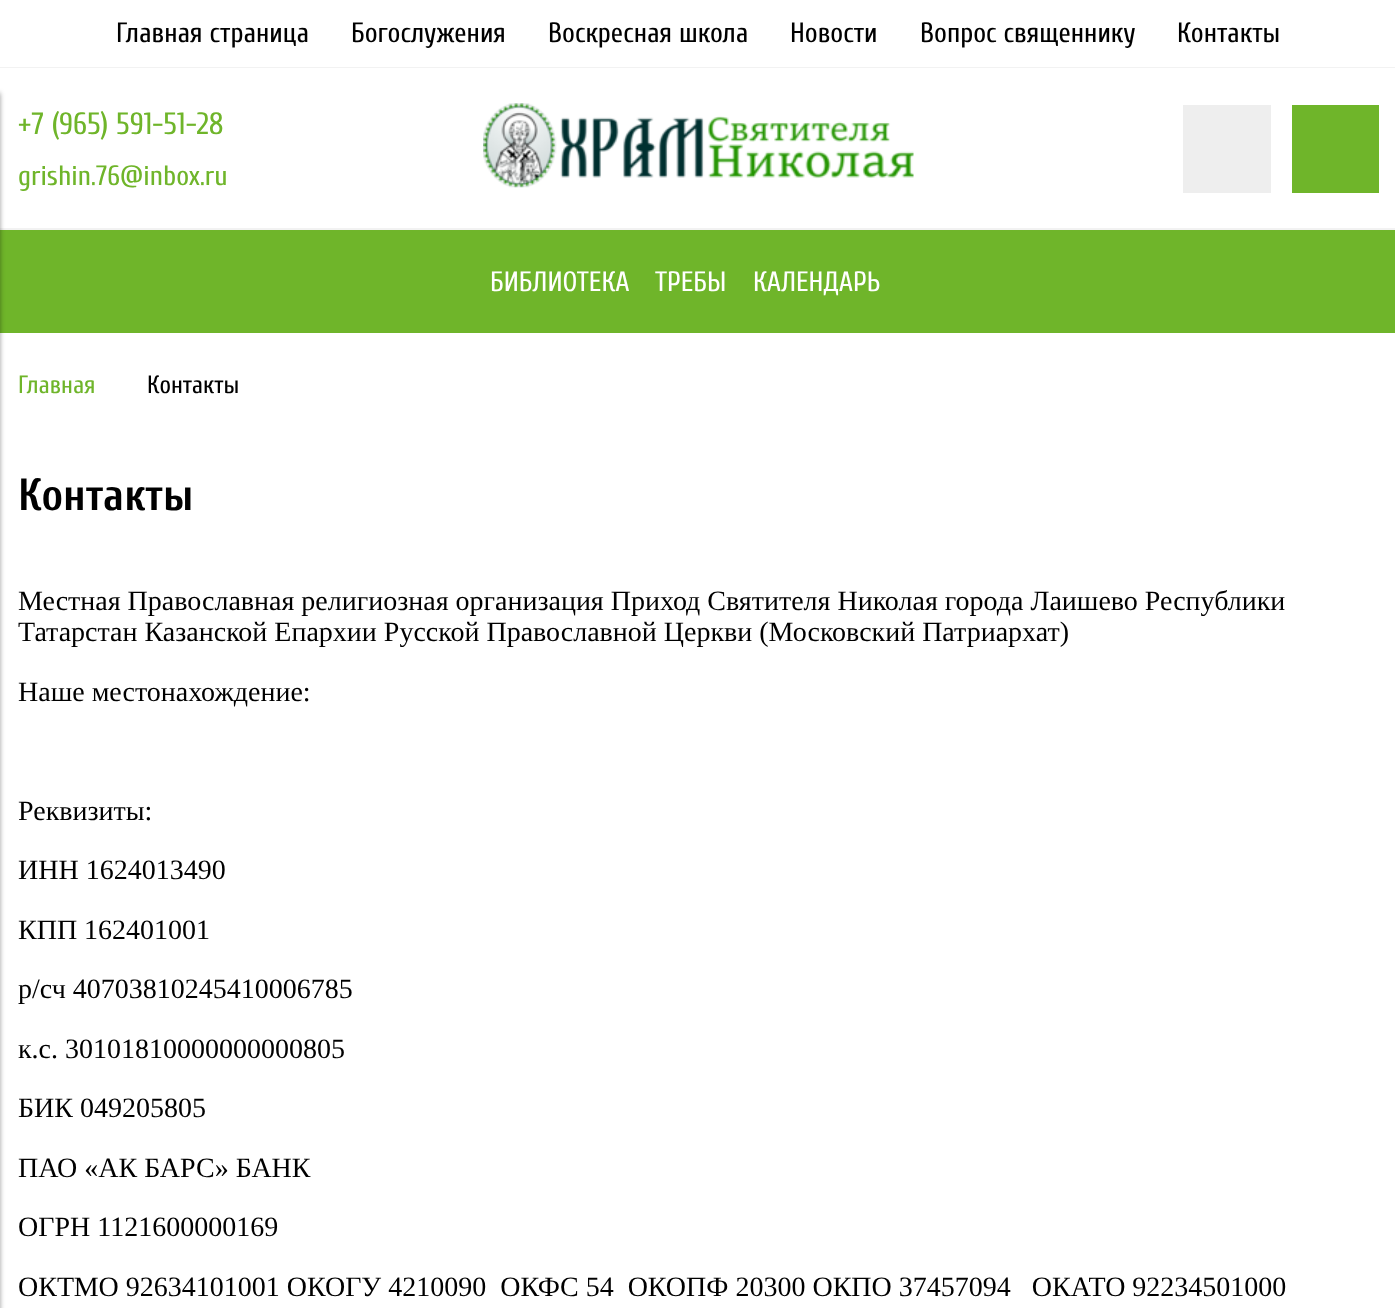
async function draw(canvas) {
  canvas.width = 1395
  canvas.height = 1308
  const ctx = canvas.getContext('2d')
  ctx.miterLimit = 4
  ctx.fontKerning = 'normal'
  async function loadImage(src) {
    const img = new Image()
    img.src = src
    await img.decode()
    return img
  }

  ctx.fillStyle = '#fff'
  ctx.fillRect(0, 0, 1395, 1308)
  ctx.fillStyle = '#f2f2f2'
  ctx.fillRect(0, 228, 1395, 2)
  ctx.fillStyle = '#6fb52a'
  ctx.fillRect(0, 230, 1395, 103)
  ctx.fillStyle = '#00000066'
  ctx.filter = 'blur(2.5px)'
  ctx.beginPath()
  ctx.rect(-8, 93, 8, 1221)
  ctx.fill()
  ctx.filter = 'none'
  ctx.fillStyle = '#f2f2f2'
  ctx.fillRect(0, 67, 1395, 1)
  ctx.font = '28px Cuprum'
  ctx.fillStyle = '#000'
  ctx.fillText('Главная страница', 116, 42)
  ctx.fillText('Богослужения', 351, 42)
  ctx.fillText('Воскресная школа', 548, 42)
  ctx.fillText('Новости', 790, 42)
  ctx.fillText('Вопрос священнику', 920, 42)
  ctx.fillText('Контакты', 1177, 42)
  ctx.font = '30.75px Cuprum'
  ctx.fillStyle = '#6fb52a'
  ctx.fillText('+7 (965) 591-51-28', 18, 134)
  ctx.font = '28px Cuprum'
  ctx.fillText('grishin.76@inbox.ru', 18, 185)
  ctx.drawImage(await loadImage('image0.png'), 483, 103, 431, 85)
  ctx.fillStyle = '#eee'
  ctx.fillRect(1183, 105, 88, 88)
  ctx.fillStyle = '#6fb52a'
  ctx.fillRect(1292, 105, 87, 88)
  ctx.fillStyle = '#fff'
  ctx.fillText('БИБЛИОТЕКА', 490, 291)
  ctx.fillText('ТРЕБЫ', 655, 291)
  ctx.fillText('КАЛЕНДАРЬ', 753, 291)
  ctx.font = '25px Cuprum'
  ctx.fillStyle = '#6fb52a'
  ctx.fillText('Главная', 18, 393)
  ctx.fillStyle = '#000'
  ctx.fillText('Контакты', 147, 393)
  ctx.font = 'bold 45px Cuprum'
  ctx.fillText('Контакты', 18, 510)
  ctx.font = '28px Liberation Serif'
  ctx.fillText('Местная Православная религиозная организация Приход Святителя Николая города Лаишево Республики', 18, 610)
  ctx.fillText('Татарстан Казанской Епархии Русской Православной Церкви (Московский Патриархат)', 18, 641)
  ctx.fillText('Наше местонахождение:', 18, 701)
  ctx.fillText('Реквизиты:', 18, 820)
  ctx.fillText('ИНН 1624013490', 18, 879)
  ctx.fillText('КПП 162401001', 18, 939)
  ctx.fillText('р/сч 40703810245410006785', 18, 998)
  ctx.fillText('к.с. 30101810000000000805', 18, 1058)
  ctx.fillText('БИК 049205805', 18, 1117)
  ctx.fillText('ПАО «АК БАРС» БАНК', 18, 1177)
  ctx.fillText('ОГРН 1121600000169', 18, 1236)
  ctx.fillText('ОКТМО 92634101001 ОКОГУ 4210090  ОКФС 54  ОКОПФ 20300 ОКПО 37457094   ОКАТО 92234501000', 18, 1296)
}

draw(document.querySelector('canvas'))
